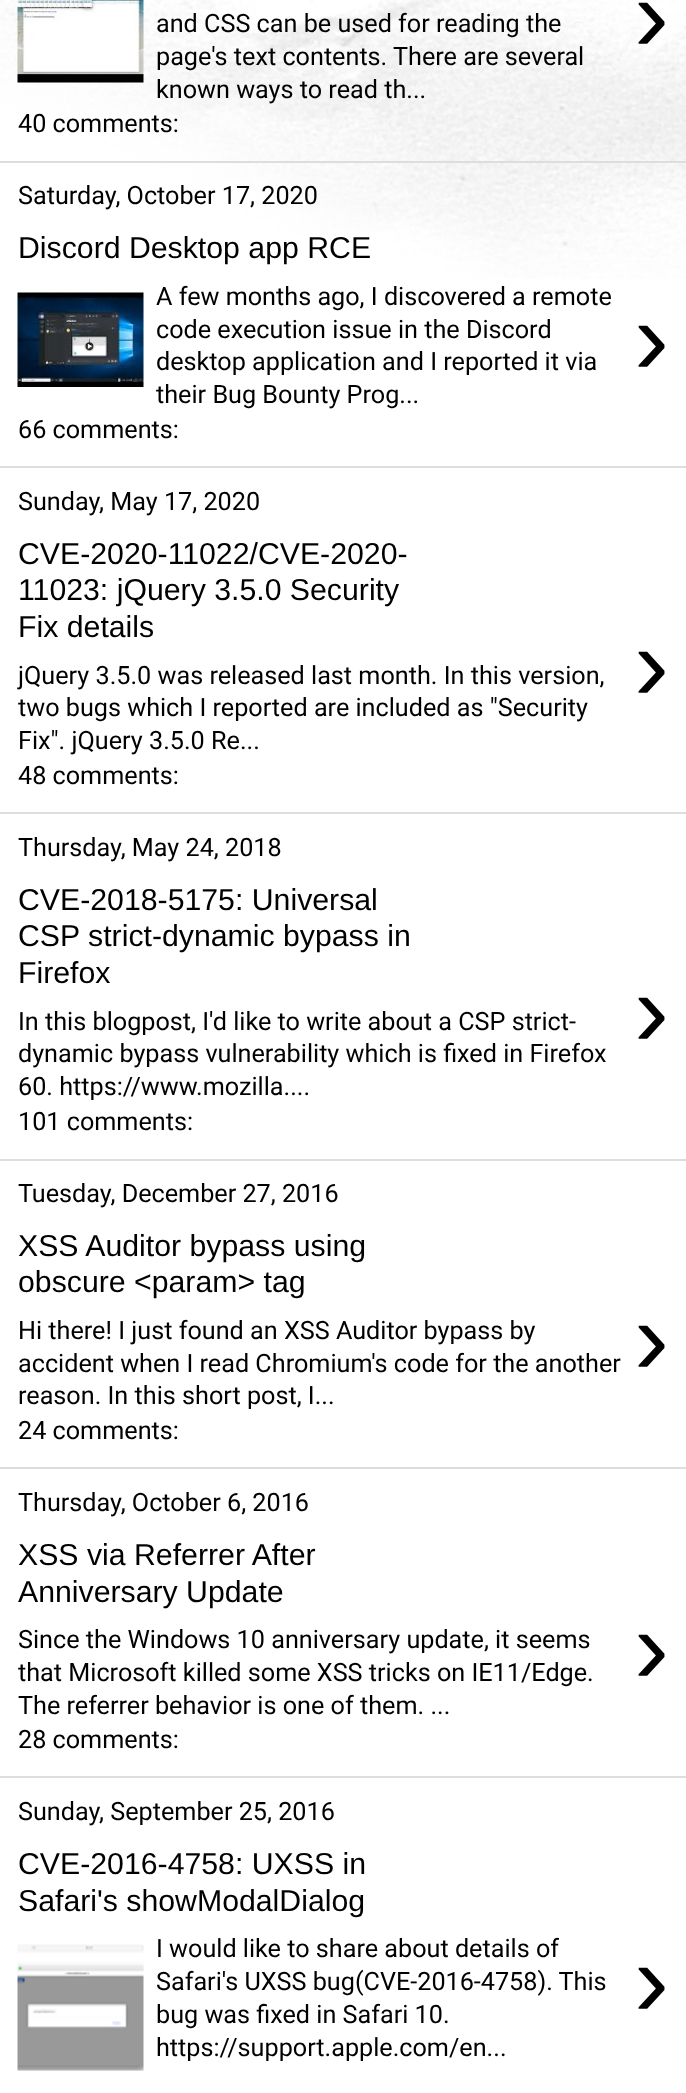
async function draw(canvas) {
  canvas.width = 686
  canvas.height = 2093
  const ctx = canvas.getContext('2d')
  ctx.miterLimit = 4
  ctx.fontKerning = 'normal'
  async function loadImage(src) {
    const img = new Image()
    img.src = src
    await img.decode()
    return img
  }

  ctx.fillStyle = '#fff'
  ctx.fillRect(0, 0, 686, 2093)
  ctx.drawImage(await loadImage('image0.png'), 0, 0, 686, 279)
  ctx.fillStyle = '#ddd'
  ctx.fillRect(0, 161, 686, 2)
  ctx.drawImage(await loadImage('image1.png'), 17, 0, 127, 83)
  ctx.font = '25.2px Roboto'
  ctx.fillStyle = '#000'
  ctx.fillText('and CSS can be used for reading the', 156, 32)
  ctx.fillText('page\'s text contents. There are several', 156, 65)
  ctx.fillText('known ways to read th...', 156, 98)
  ctx.font = '105px Liberation Sans'
  ctx.fillText('›', 634, 51)
  ctx.font = '25.2px Roboto'
  ctx.fillText('40 comments:', 18, 132)
  ctx.fillStyle = '#ddd'
  ctx.fillRect(0, 466, 686, 2)
  ctx.fillStyle = '#000'
  ctx.fillText('Saturday, October 17, 2020', 18, 204)
  ctx.font = '30.25px Liberation Sans'
  ctx.fillText('Discord Desktop app RCE', 18, 258)
  ctx.drawImage(await loadImage('image2.png'), 17, 292, 127, 95)
  ctx.font = '25.2px Roboto'
  ctx.fillText('A few months ago, I discovered a remote', 156, 305)
  ctx.fillText('code execution issue in the Discord', 156, 338)
  ctx.fillText('desktop application and I reported it via', 156, 370)
  ctx.fillText('their Bug Bounty Prog...', 156, 403)
  ctx.font = '105px Liberation Sans'
  ctx.fillText('›', 634, 374)
  ctx.font = '25.2px Roboto'
  ctx.fillText('66 comments:', 18, 438)
  ctx.fillStyle = '#ddd'
  ctx.fillRect(0, 812, 686, 2)
  ctx.fillStyle = '#000'
  ctx.fillText('Sunday, May 17, 2020', 18, 510)
  ctx.font = '30.25px Liberation Sans'
  ctx.fillText('CVE-2020-11022/CVE-2020-', 18, 564)
  ctx.fillText('11023: jQuery 3.5.0 Security', 18, 600)
  ctx.fillText('Fix details', 18, 637)
  ctx.font = '25.2px Roboto'
  ctx.fillText('jQuery 3.5.0 was released last month. In this version,', 18, 684)
  ctx.fillText('two bugs which I reported are included as "Security', 18, 716)
  ctx.fillText('Fix". jQuery 3.5.0 Re...', 18, 749)
  ctx.font = '105px Liberation Sans'
  ctx.fillText('›', 634, 700)
  ctx.font = '25.2px Roboto'
  ctx.fillText('48 comments:', 18, 784)
  ctx.fillStyle = '#ddd'
  ctx.fillRect(0, 1159, 686, 2)
  ctx.fillStyle = '#000'
  ctx.fillText('Thursday, May 24, 2018', 18, 856)
  ctx.font = '30.25px Liberation Sans'
  ctx.fillText('CVE-2018-5175: Universal', 18, 910)
  ctx.fillText('CSP strict-dynamic bypass in', 18, 946)
  ctx.fillText('Firefox', 18, 983)
  ctx.font = '25.2px Roboto'
  ctx.fillText('In this blogpost, I\'d like to write about a CSP strict-', 18, 1030)
  ctx.fillText('dynamic bypass vulnerability which is fixed in Firefox', 18, 1062)
  ctx.fillText('60. https://www.mozilla....', 18, 1095)
  ctx.font = '105px Liberation Sans'
  ctx.fillText('›', 634, 1046)
  ctx.font = '25.2px Roboto'
  ctx.fillText('101 comments:', 18, 1130)
  ctx.fillStyle = '#ddd'
  ctx.fillRect(0, 1467, 686, 2)
  ctx.fillStyle = '#000'
  ctx.fillText('Tuesday, December 27, 2016', 18, 1202)
  ctx.font = '30.25px Liberation Sans'
  ctx.fillText('XSS Auditor bypass using', 18, 1256)
  ctx.fillText('obscure <param> tag', 18, 1292)
  ctx.font = '25.2px Roboto'
  ctx.fillText('Hi there! I just found an XSS Auditor bypass by', 18, 1339)
  ctx.fillText('accident when I read Chromium\'s code for the another', 18, 1372)
  ctx.fillText('reason. In this short post, I...', 18, 1404)
  ctx.font = '105px Liberation Sans'
  ctx.fillText('›', 634, 1374)
  ctx.font = '25.2px Roboto'
  ctx.fillText('24 comments:', 18, 1439)
  ctx.fillStyle = '#ddd'
  ctx.fillRect(0, 1776, 686, 2)
  ctx.fillStyle = '#000'
  ctx.fillText('Thursday, October 6, 2016', 18, 1511)
  ctx.font = '30.25px Liberation Sans'
  ctx.fillText('XSS via Referrer After', 18, 1565)
  ctx.fillText('Anniversary Update', 18, 1602)
  ctx.font = '25.2px Roboto'
  ctx.fillText('Since the Windows 10 anniversary update, it seems', 18, 1648)
  ctx.fillText('that Microsoft killed some XSS tricks on IE11/Edge.', 18, 1681)
  ctx.fillText('The referrer behavior is one of them. ...', 18, 1714)
  ctx.font = '105px Liberation Sans'
  ctx.fillText('›', 634, 1683)
  ctx.font = '25.2px Roboto'
  ctx.fillText('28 comments:', 18, 1748)
  ctx.fillText('Sunday, September 25, 2016', 18, 1820)
  ctx.font = '30.25px Liberation Sans'
  ctx.fillText('CVE-2016-4758: UXSS in', 18, 1874)
  ctx.fillText('Safari\'s showModalDialog', 18, 1911)
  ctx.drawImage(await loadImage('image3.png'), 17, 1944, 127, 127)
  ctx.font = '25.2px Roboto'
  ctx.fillText('I would like to share about details of', 156, 1957)
  ctx.fillText('Safari\'s UXSS bug(CVE-2016-4758). This', 156, 1990)
  ctx.fillText('bug was fixed in Safari 10.', 156, 2023)
  ctx.fillText('https://support.apple.com/en...', 156, 2056)
  ctx.font = '105px Liberation Sans'
  ctx.fillText('›', 634, 2016)
}

draw(document.querySelector('canvas'))
